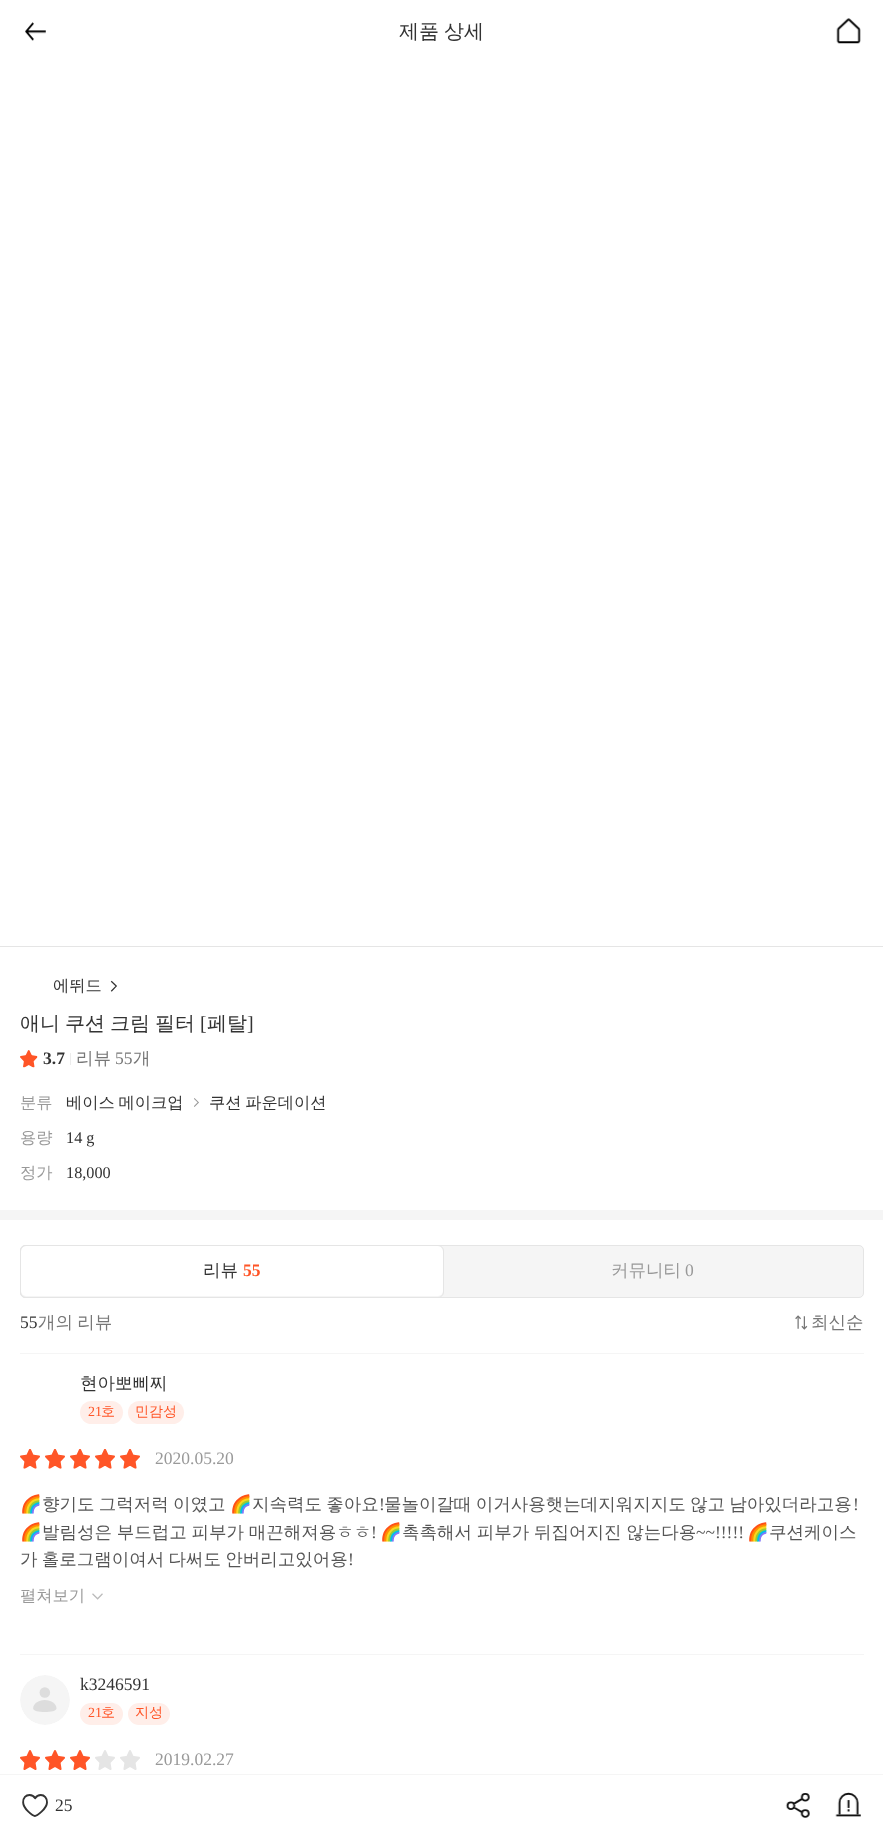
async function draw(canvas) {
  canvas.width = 883
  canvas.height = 1833
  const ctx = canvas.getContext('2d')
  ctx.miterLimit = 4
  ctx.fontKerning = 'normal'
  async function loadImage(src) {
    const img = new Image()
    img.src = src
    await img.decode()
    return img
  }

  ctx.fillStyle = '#fff'
  ctx.fillRect(0, 0, 883, 1833)
  ctx.drawImage(await loadImage('image0.png'), 25, 22, 21, 19)
  ctx.wordSpacing = '-1px'
  ctx.font = '500 20px WenQuanYi Zen Hei'
  ctx.fillStyle = '#333'
  ctx.fillText('제품 상세', 399, 38)
  ctx.drawImage(await loadImage('image1.png'), 836, 18, 25, 26)
  ctx.fillStyle = '#e5e5e5'
  ctx.fillRect(0, 946, 883, 1)
  ctx.wordSpacing = '0px'
  ctx.font = '500 16.25px WenQuanYi Zen Hei'
  ctx.fillStyle = '#333'
  ctx.fillText('에뛰드', 53, 991)
  ctx.drawImage(await loadImage('image2.png'), 110, 980, 7, 12)
  ctx.wordSpacing = '-1px'
  ctx.font = '500 20px WenQuanYi Zen Hei'
  ctx.fillText('애니 쿠션 크림 필터', 20, 1030)
  ctx.wordSpacing = '0px'
  ctx.font = '20px Liberation Serif'
  ctx.fillText('[', 200, 1030)
  ctx.font = '500 20px WenQuanYi Zen Hei'
  ctx.fillText('페탈', 207, 1030)
  ctx.font = '20px Liberation Serif'
  ctx.fillText(']', 247, 1030)
  ctx.drawImage(await loadImage('image3.png'), 20, 1050, 18, 18)
  ctx.font = 'bold 17.5px Liberation Serif'
  ctx.fillText('3.7', 43, 1064)
  ctx.fillStyle = '#ececec'
  ctx.fillRect(70, 1053, 1, 12)
  ctx.font = '500 17.5px WenQuanYi Zen Hei'
  ctx.fillStyle = '#777'
  ctx.fillText('리뷰', 76, 1064)
  ctx.font = '17.5px Liberation Serif'
  ctx.fillText('55', 115, 1064)
  ctx.font = '500 17.5px WenQuanYi Zen Hei'
  ctx.fillText('개', 133, 1064)
  ctx.font = '500 16.25px WenQuanYi Zen Hei'
  ctx.fillStyle = '#999'
  ctx.fillText('분류', 20, 1108)
  ctx.wordSpacing = '-1px'
  ctx.fillStyle = '#333'
  ctx.fillText('베이스 메이크업', 66, 1108)
  ctx.drawImage(await loadImage('image4.png'), 194, 1098, 5, 9)
  ctx.fillText('쿠션 파운데이션', 209, 1108)
  ctx.wordSpacing = '0px'
  ctx.fillStyle = '#999'
  ctx.fillText('용량', 20, 1143)
  ctx.font = '16.25px Liberation Serif'
  ctx.fillStyle = '#333'
  ctx.fillText('14 g', 66, 1143)
  ctx.font = '500 16.25px WenQuanYi Zen Hei'
  ctx.fillStyle = '#999'
  ctx.fillText('정가', 20, 1178)
  ctx.font = '16.25px Liberation Serif'
  ctx.fillStyle = '#333'
  ctx.fillText('18,000', 66, 1178)
  ctx.fillStyle = '#f5f5f5'
  ctx.fillRect(0, 1210, 883, 10)
  ctx.beginPath()
  ctx.roundRect(20.5, 1245.5, 843, 52, 4.5)
  ctx.fill()
  ctx.strokeStyle = '#e5e5e5'
  ctx.stroke()
  ctx.fillStyle = '#fff'
  ctx.beginPath()
  ctx.roundRect(21, 1246, 422, 50, 5)
  ctx.fill()
  ctx.beginPath()
  ctx.roundRect(20.5, 1245.5, 423, 52, 5.5)
  ctx.stroke()
  ctx.font = '500 17.5px WenQuanYi Zen Hei'
  ctx.fillStyle = '#333'
  ctx.fillText('리뷰', 203, 1276)
  ctx.font = 'bold 17.5px Liberation Serif'
  ctx.fillStyle = '#ff5527'
  ctx.fillText('55', 243, 1276)
  ctx.font = '500 17.5px WenQuanYi Zen Hei'
  ctx.fillStyle = '#999'
  ctx.fillText('커뮤니티', 611, 1276)
  ctx.font = '17.5px Liberation Serif'
  ctx.fillText('0', 685, 1276)
  ctx.fillStyle = '#333'
  ctx.fillText('55', 20, 1328)
  ctx.wordSpacing = '-1px'
  ctx.font = '500 17.5px WenQuanYi Zen Hei'
  ctx.fillStyle = '#777'
  ctx.fillText('개의 리뷰', 38, 1328)
  ctx.drawImage(await loadImage('image5.png'), 795, 1315, 13, 15)
  ctx.wordSpacing = '0px'
  ctx.fillText('최신순', 811, 1328)
  ctx.fillStyle = '#f5f5f5'
  ctx.fillRect(20, 1353, 844, 1)
  ctx.fillStyle = '#333'
  ctx.fillText('현아뽀삐찌', 80, 1389)
  ctx.fillStyle = '#ffeee9'
  ctx.beginPath()
  ctx.roundRect(80, 1401, 43, 23, 11.5)
  ctx.fill()
  ctx.font = '14px Liberation Serif'
  ctx.fillStyle = '#ff5527'
  ctx.fillText('21', 88, 1416)
  ctx.font = '500 14px WenQuanYi Zen Hei'
  ctx.fillText('호', 101, 1416)
  ctx.fillStyle = '#ffeee9'
  ctx.beginPath()
  ctx.roundRect(128, 1401, 56, 23, 11.5)
  ctx.fill()
  ctx.fillStyle = '#ff5527'
  ctx.fillText('민감성', 135, 1416)
  ctx.drawImage(await loadImage('image6.png'), 20, 1449, 20, 20)
  ctx.drawImage(await loadImage('image6.png'), 45, 1449, 20, 20)
  ctx.drawImage(await loadImage('image6.png'), 70, 1449, 20, 20)
  ctx.drawImage(await loadImage('image6.png'), 95, 1449, 20, 20)
  ctx.drawImage(await loadImage('image6.png'), 120, 1449, 20, 20)
  ctx.font = '17.5px Liberation Serif'
  ctx.fillStyle = '#999'
  ctx.fillText('2020.05.20', 155, 1464)
  ctx.font = '17.5px Noto Color Emoji'
  ctx.fillStyle = '#555'
  ctx.fillText('🌈', 20, 1510)
  ctx.wordSpacing = '-1px'
  ctx.font = '500 17.5px WenQuanYi Zen Hei'
  ctx.fillText('향기도 그럭저럭 이였고', 42, 1510)
  ctx.wordSpacing = '0px'
  ctx.font = '17.5px Noto Color Emoji'
  ctx.fillText('🌈', 230, 1510)
  ctx.wordSpacing = '-1px'
  ctx.font = '500 17.5px WenQuanYi Zen Hei'
  ctx.fillText('지속력도 좋아요', 252, 1510)
  ctx.wordSpacing = '0px'
  ctx.font = '17.5px Liberation Serif'
  ctx.fillText('!', 379, 1510)
  ctx.wordSpacing = '-1px'
  ctx.font = '500 17.5px WenQuanYi Zen Hei'
  ctx.fillText('물놀이갈때 이거사용햇는데지워지지도 않고 남아있더라고용', 384, 1510)
  ctx.wordSpacing = '0px'
  ctx.font = '17.5px Liberation Serif'
  ctx.fillText('!', 853, 1510)
  ctx.font = '17.5px Noto Color Emoji'
  ctx.fillText('🌈', 20, 1538)
  ctx.wordSpacing = '-0.5px'
  ctx.font = '500 17.5px WenQuanYi Zen Hei'
  ctx.fillText('발림성은 부드럽고 피부가 매끈해져용ㅎㅎ', 42, 1538)
  ctx.wordSpacing = '0px'
  ctx.font = '17.5px Liberation Serif'
  ctx.fillText('!', 371, 1538)
  ctx.font = '17.5px Noto Color Emoji'
  ctx.fillText('🌈', 380, 1538)
  ctx.wordSpacing = '-0.5px'
  ctx.font = '500 17.5px WenQuanYi Zen Hei'
  ctx.fillText('촉촉해서 피부가 뒤집어지진 않는다용', 402, 1538)
  ctx.wordSpacing = '0px'
  ctx.font = '17.5px Liberation Serif'
  ctx.fillText('~~!!!!!', 696, 1538)
  ctx.font = '17.5px Noto Color Emoji'
  ctx.fillText('🌈', 747, 1538)
  ctx.font = '500 17.5px WenQuanYi Zen Hei'
  ctx.fillText('쿠션케이스', 769, 1538)
  ctx.wordSpacing = '-1px'
  ctx.fillText('가 홀로그램이여서 다써도 안버리고있어용', 20, 1565)
  ctx.wordSpacing = '0px'
  ctx.font = '17.5px Liberation Serif'
  ctx.fillText('!', 348, 1565)
  ctx.font = '500 16.25px WenQuanYi Zen Hei'
  ctx.fillStyle = '#999'
  ctx.fillText('펼쳐보기', 20, 1601)
  ctx.drawImage(await loadImage('image7.png'), 92, 1593, 11, 7)
  ctx.fillStyle = '#f5f5f5'
  ctx.fillRect(20, 1654, 844, 1)
  ctx.drawImage(await loadImage('image8.png'), 20, 1675, 50, 50)
  ctx.font = '17.5px Liberation Serif'
  ctx.fillStyle = '#333'
  ctx.fillText('k3246591', 80, 1690)
  ctx.fillStyle = '#ffeee9'
  ctx.beginPath()
  ctx.roundRect(80, 1703, 43, 22, 11)
  ctx.fill()
  ctx.font = '14px Liberation Serif'
  ctx.fillStyle = '#ff5527'
  ctx.fillText('21', 88, 1717)
  ctx.font = '500 14px WenQuanYi Zen Hei'
  ctx.fillText('호', 101, 1717)
  ctx.fillStyle = '#ffeee9'
  ctx.beginPath()
  ctx.roundRect(128, 1703, 42, 22, 11)
  ctx.fill()
  ctx.fillStyle = '#ff5527'
  ctx.fillText('지성', 135, 1717)
  ctx.drawImage(await loadImage('image9.png'), 20, 1750, 20, 20)
  ctx.drawImage(await loadImage('image9.png'), 45, 1750, 20, 20)
  ctx.drawImage(await loadImage('image9.png'), 70, 1750, 20, 20)
  ctx.drawImage(await loadImage('image10.png'), 95, 1750, 20, 20)
  ctx.drawImage(await loadImage('image10.png'), 120, 1750, 20, 20)
  ctx.font = '17.5px Liberation Serif'
  ctx.fillStyle = '#999'
  ctx.fillText('2019.02.27', 155, 1765)
  ctx.fillStyle = '#f5f5f5'
  ctx.fillRect(0, 1774, 883, 1)
  ctx.drawImage(await loadImage('image11.png'), 22, 1794, 26, 23)
  ctx.fillStyle = '#333'
  ctx.fillText('25', 55, 1811)
  ctx.drawImage(await loadImage('image12.png'), 785, 1793, 25, 25)
  ctx.drawImage(await loadImage('image13.png'), 835, 1792, 26, 25)
}

draw(document.querySelector('canvas'))
